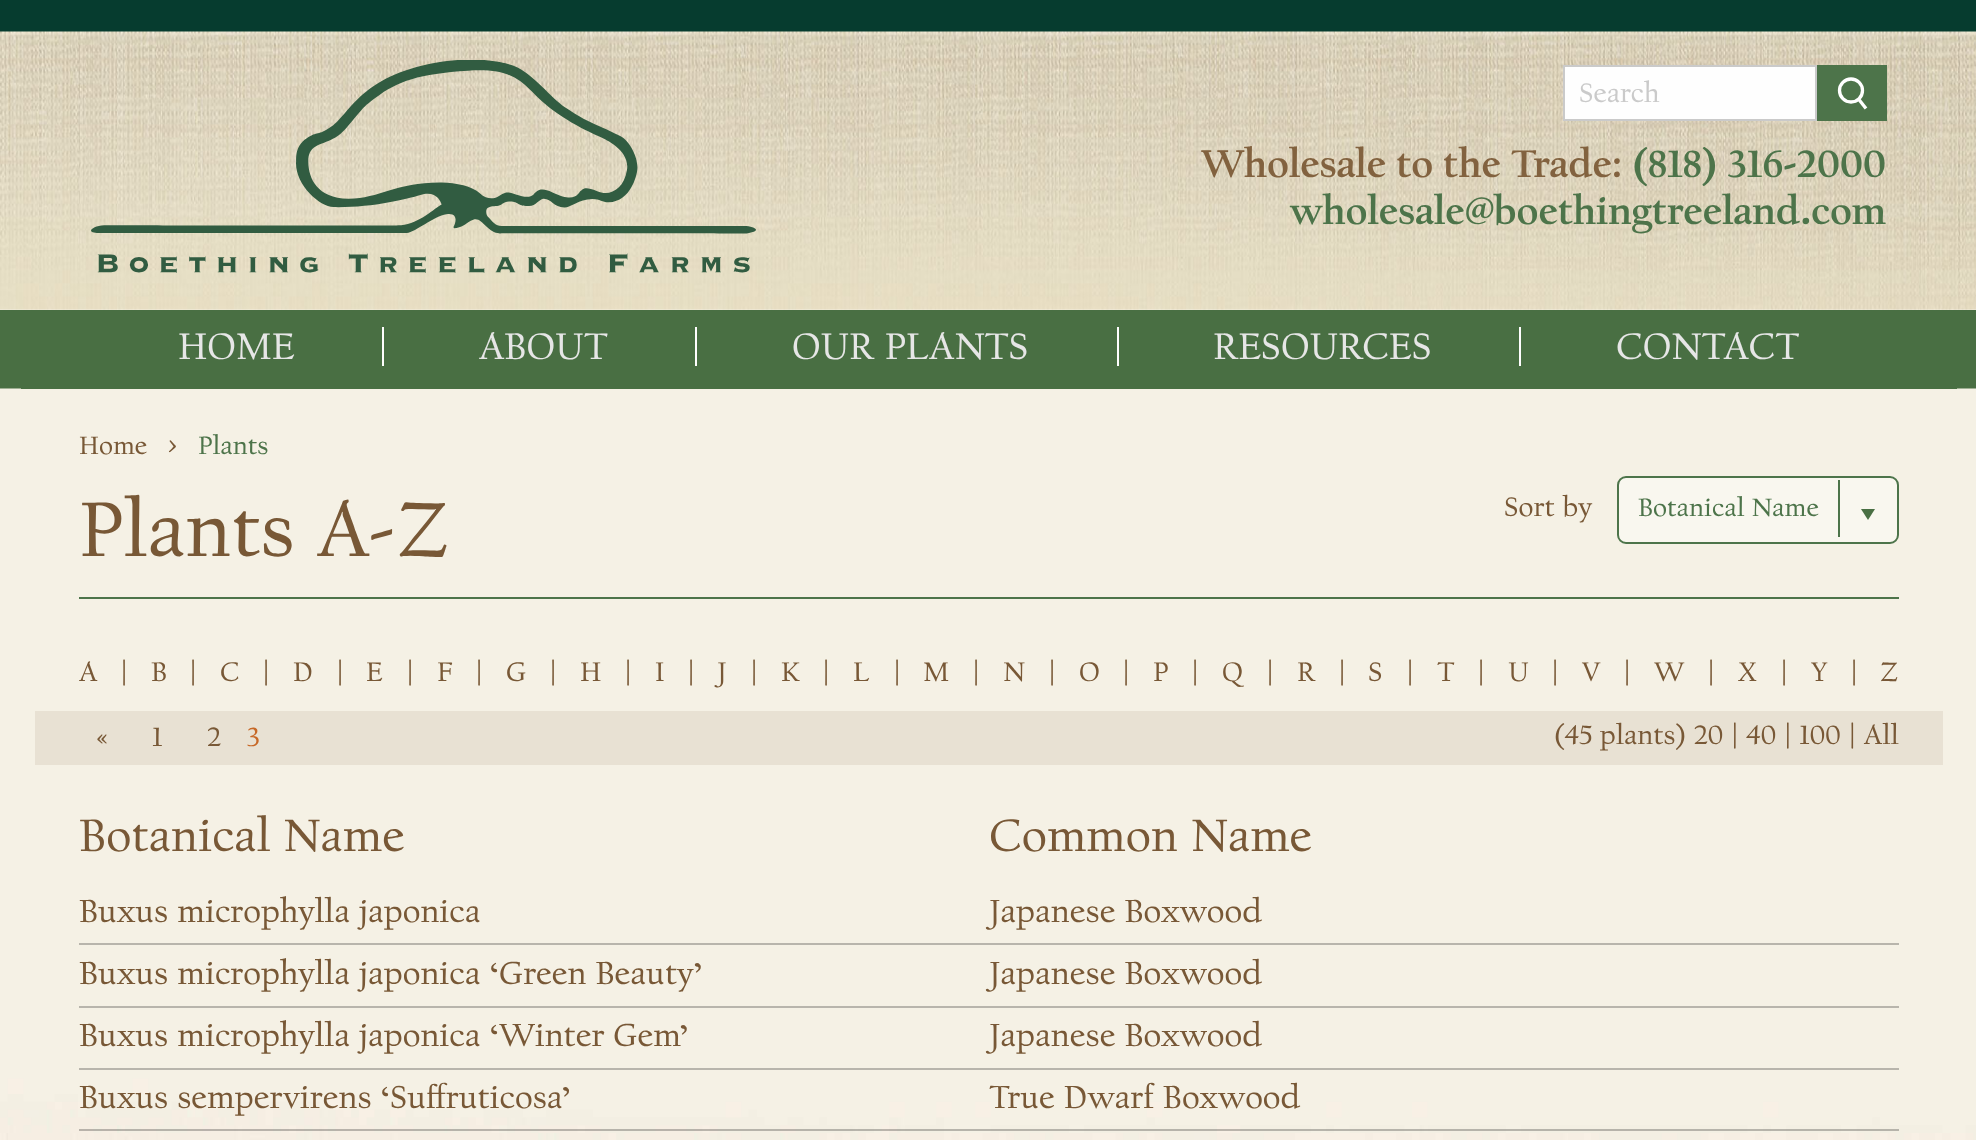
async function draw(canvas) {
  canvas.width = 1976
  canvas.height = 1140
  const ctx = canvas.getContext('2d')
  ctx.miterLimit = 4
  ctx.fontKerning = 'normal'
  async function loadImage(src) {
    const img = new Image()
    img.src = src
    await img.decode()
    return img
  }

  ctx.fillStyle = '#fff'
  ctx.fillRect(0, 0, 1976, 1140)
  ctx.fillStyle = '#063c2f'
  ctx.fillRect(0, 0, 1976, 32)
  ctx.drawImage(await loadImage('image0.png'), 0, 31, 1976, 279)
  ctx.drawImage(await loadImage('image1.png'), 91, 60, 665, 213)
  ctx.fillStyle = '#fefefe'
  ctx.beginPath()
  ctx.rect(1564, 66, 252, 54)
  ctx.fill()
  ctx.strokeStyle = '#cacaca'
  ctx.lineWidth = 2
  ctx.stroke()
  ctx.font = '28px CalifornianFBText'
  ctx.fillStyle = '#cacaca'
  ctx.fillText('Search', 1579, 102)
  ctx.fillStyle = '#4d744a'
  ctx.fillRect(1817, 65, 70, 56)
  ctx.beginPath()
  ctx.arc(1851, 90.5, 11.5, 0, 2 * Math.PI)
  ctx.strokeStyle = '#fff'
  ctx.lineWidth = 3.3
  ctx.stroke()
  ctx.beginPath()
  ctx.moveTo(1858.5, 99)
  ctx.lineTo(1866, 108.5)
  ctx.stroke()
  ctx.font = 'bold 40.25px CalifornianFBText'
  ctx.fillStyle = '#82623f'
  ctx.fillText('Wholesale to the Trade:', 1201, 177)
  ctx.fillStyle = '#4d744a'
  ctx.fillText('(818) 316-2000', 1632, 177)
  ctx.fillText('wholesale@boethingtreeland.com', 1290, 224)
  ctx.fillStyle = '#496f43'
  ctx.fillRect(0, 310, 1976, 79)
  ctx.drawImage(await loadImage('image2.png'), 0, 388, 1976, 752)
  ctx.fillRect(21, 388, 1936, 1)
  ctx.fillStyle = '#fefefe'
  ctx.fillRect(382, 327, 2, 39)
  ctx.font = '38.5px CalifornianFBText'
  ctx.fillStyle = '#e6e6e6'
  ctx.fillText('HOME', 178, 359)
  ctx.fillStyle = '#fefefe'
  ctx.fillRect(695, 327, 2, 39)
  ctx.fillStyle = '#e6e6e6'
  ctx.fillText('ABOUT', 479, 359)
  ctx.fillStyle = '#fefefe'
  ctx.fillRect(1117, 327, 2, 39)
  ctx.fillStyle = '#e6e6e6'
  ctx.fillText('OUR PLANTS', 792, 359)
  ctx.fillStyle = '#fefefe'
  ctx.fillRect(1519, 327, 2, 39)
  ctx.fillStyle = '#e6e6e6'
  ctx.fillText('RESOURCES', 1213, 359)
  ctx.fillText('CONTACT', 1616, 359)
  ctx.font = '26.25px CalifornianFBText'
  ctx.fillStyle = '#785836'
  ctx.fillText('Home', 79, 454)
  ctx.fillText('>', 168, 454)
  ctx.fillStyle = '#4d744a'
  ctx.fillText('Plants', 198, 454)
  ctx.fillRect(79, 597, 1820, 2)
  ctx.font = '80.5px CalifornianFBText'
  ctx.fillStyle = '#785836'
  ctx.fillText('Plants A-Z', 79, 556)
  ctx.font = '28px CalifornianFBText'
  ctx.fillText('Sort by', 1504, 516)
  ctx.fillStyle = '#f9f7ef'
  ctx.beginPath()
  ctx.roundRect(1617, 476, 282, 68, 9)
  ctx.fill()
  ctx.fillStyle = '#496f43'
  ctx.beginPath()
  ctx.moveTo(1861, 509)
  ctx.lineTo(1875, 509)
  ctx.lineTo(1868, 520)
  ctx.closePath()
  ctx.fill()
  ctx.beginPath()
  ctx.roundRect(1618, 477, 280, 66, 8)
  ctx.strokeStyle = '#4d744a'
  ctx.lineWidth = 2
  ctx.stroke()
  ctx.font = '26.25px CalifornianFBText'
  ctx.fillStyle = '#4d744a'
  ctx.fillText('Botanical Name', 1638, 516)
  ctx.fillRect(1838, 480, 2, 57)
  ctx.font = '28px CalifornianFBText'
  ctx.fillStyle = '#785836'
  ctx.fillText('A', 79, 681)
  ctx.fillText('|', 120, 681)
  ctx.fillText('B', 151, 681)
  ctx.fillText('|', 189, 681)
  ctx.fillText('C', 220, 681)
  ctx.fillText('|', 262, 681)
  ctx.fillText('D', 293, 681)
  ctx.fillText('|', 336, 681)
  ctx.fillText('E', 366, 681)
  ctx.fillText('|', 406, 681)
  ctx.fillText('F', 437, 681)
  ctx.fillText('|', 475, 681)
  ctx.fillText('G', 506, 681)
  ctx.fillText('|', 549, 681)
  ctx.fillText('H', 580, 681)
  ctx.fillText('|', 624, 681)
  ctx.fillText('I', 655, 681)
  ctx.fillText('|', 687, 681)
  ctx.fillText('J', 717, 681)
  ctx.fillText('|', 750, 681)
  ctx.fillText('K', 781, 681)
  ctx.fillText('|', 822, 681)
  ctx.fillText('L', 853, 681)
  ctx.fillText('|', 893, 681)
  ctx.fillText('M', 923, 681)
  ctx.fillText('|', 972, 681)
  ctx.fillText('N', 1003, 681)
  ctx.fillText('|', 1048, 681)
  ctx.fillText('O', 1079, 681)
  ctx.fillText('|', 1122, 681)
  ctx.fillText('P', 1153, 681)
  ctx.fillText('|', 1191, 681)
  ctx.fillText('Q', 1222, 681)
  ctx.fillText('|', 1266, 681)
  ctx.fillText('R', 1297, 681)
  ctx.fillText('|', 1338, 681)
  ctx.fillText('S', 1368, 681)
  ctx.fillText('|', 1406, 681)
  ctx.fillText('T', 1437, 681)
  ctx.fillText('|', 1477, 681)
  ctx.fillText('U', 1508, 681)
  ctx.fillText('|', 1551, 681)
  ctx.fillText('V', 1582, 681)
  ctx.fillText('|', 1623, 681)
  ctx.fillText('W', 1654, 681)
  ctx.fillText('|', 1707, 681)
  ctx.fillText('X', 1738, 681)
  ctx.fillText('|', 1780, 681)
  ctx.fillText('Y', 1811, 681)
  ctx.fillText('|', 1850, 681)
  ctx.fillText('Z', 1880, 681)
  ctx.fillStyle = '#e8e1d3'
  ctx.fillRect(35, 711, 1908, 54)
  ctx.fillStyle = '#785836'
  ctx.fillText('«', 96, 746)
  ctx.fillText('1', 152, 746)
  ctx.fillText('2', 207, 746)
  ctx.fillStyle = '#c76827'
  ctx.fillText('3', 247, 746)
  ctx.fillStyle = '#785836'
  ctx.fillText('(45 plants) 20 | 40 | 100 | All', 1554, 744)
  ctx.font = '47.25px CalifornianFBText'
  ctx.fillText('Botanical Name', 79, 851)
  ctx.fillText('Common Name', 989, 851)
  ctx.fillStyle = '#b8b5ac'
  ctx.fillRect(79, 943, 1820, 2)
  ctx.font = '33.25px CalifornianFBText'
  ctx.fillStyle = '#785836'
  ctx.fillText('Buxus microphylla japonica', 79, 922)
  ctx.fillText('Japanese Boxwood', 989, 922)
  ctx.fillStyle = '#b8b5ac'
  ctx.fillRect(79, 1006, 1820, 2)
  ctx.fillStyle = '#785836'
  ctx.fillText('Buxus microphylla japonica ‘Green Beauty’', 79, 984)
  ctx.fillText('Japanese Boxwood', 989, 984)
  ctx.fillStyle = '#b8b5ac'
  ctx.fillRect(79, 1068, 1820, 2)
  ctx.fillStyle = '#785836'
  ctx.fillText('Buxus microphylla japonica ‘Winter Gem’', 79, 1046)
  ctx.fillText('Japanese Boxwood', 989, 1046)
  ctx.fillStyle = '#00000040'
  ctx.fillRect(79, 1129, 1820, 2)
  ctx.fillStyle = '#785836'
  ctx.fillText('Buxus sempervirens ‘Suffruticosa’', 79, 1108)
  ctx.fillText('True Dwarf Boxwood', 989, 1108)
}

draw(document.querySelector('canvas'))
